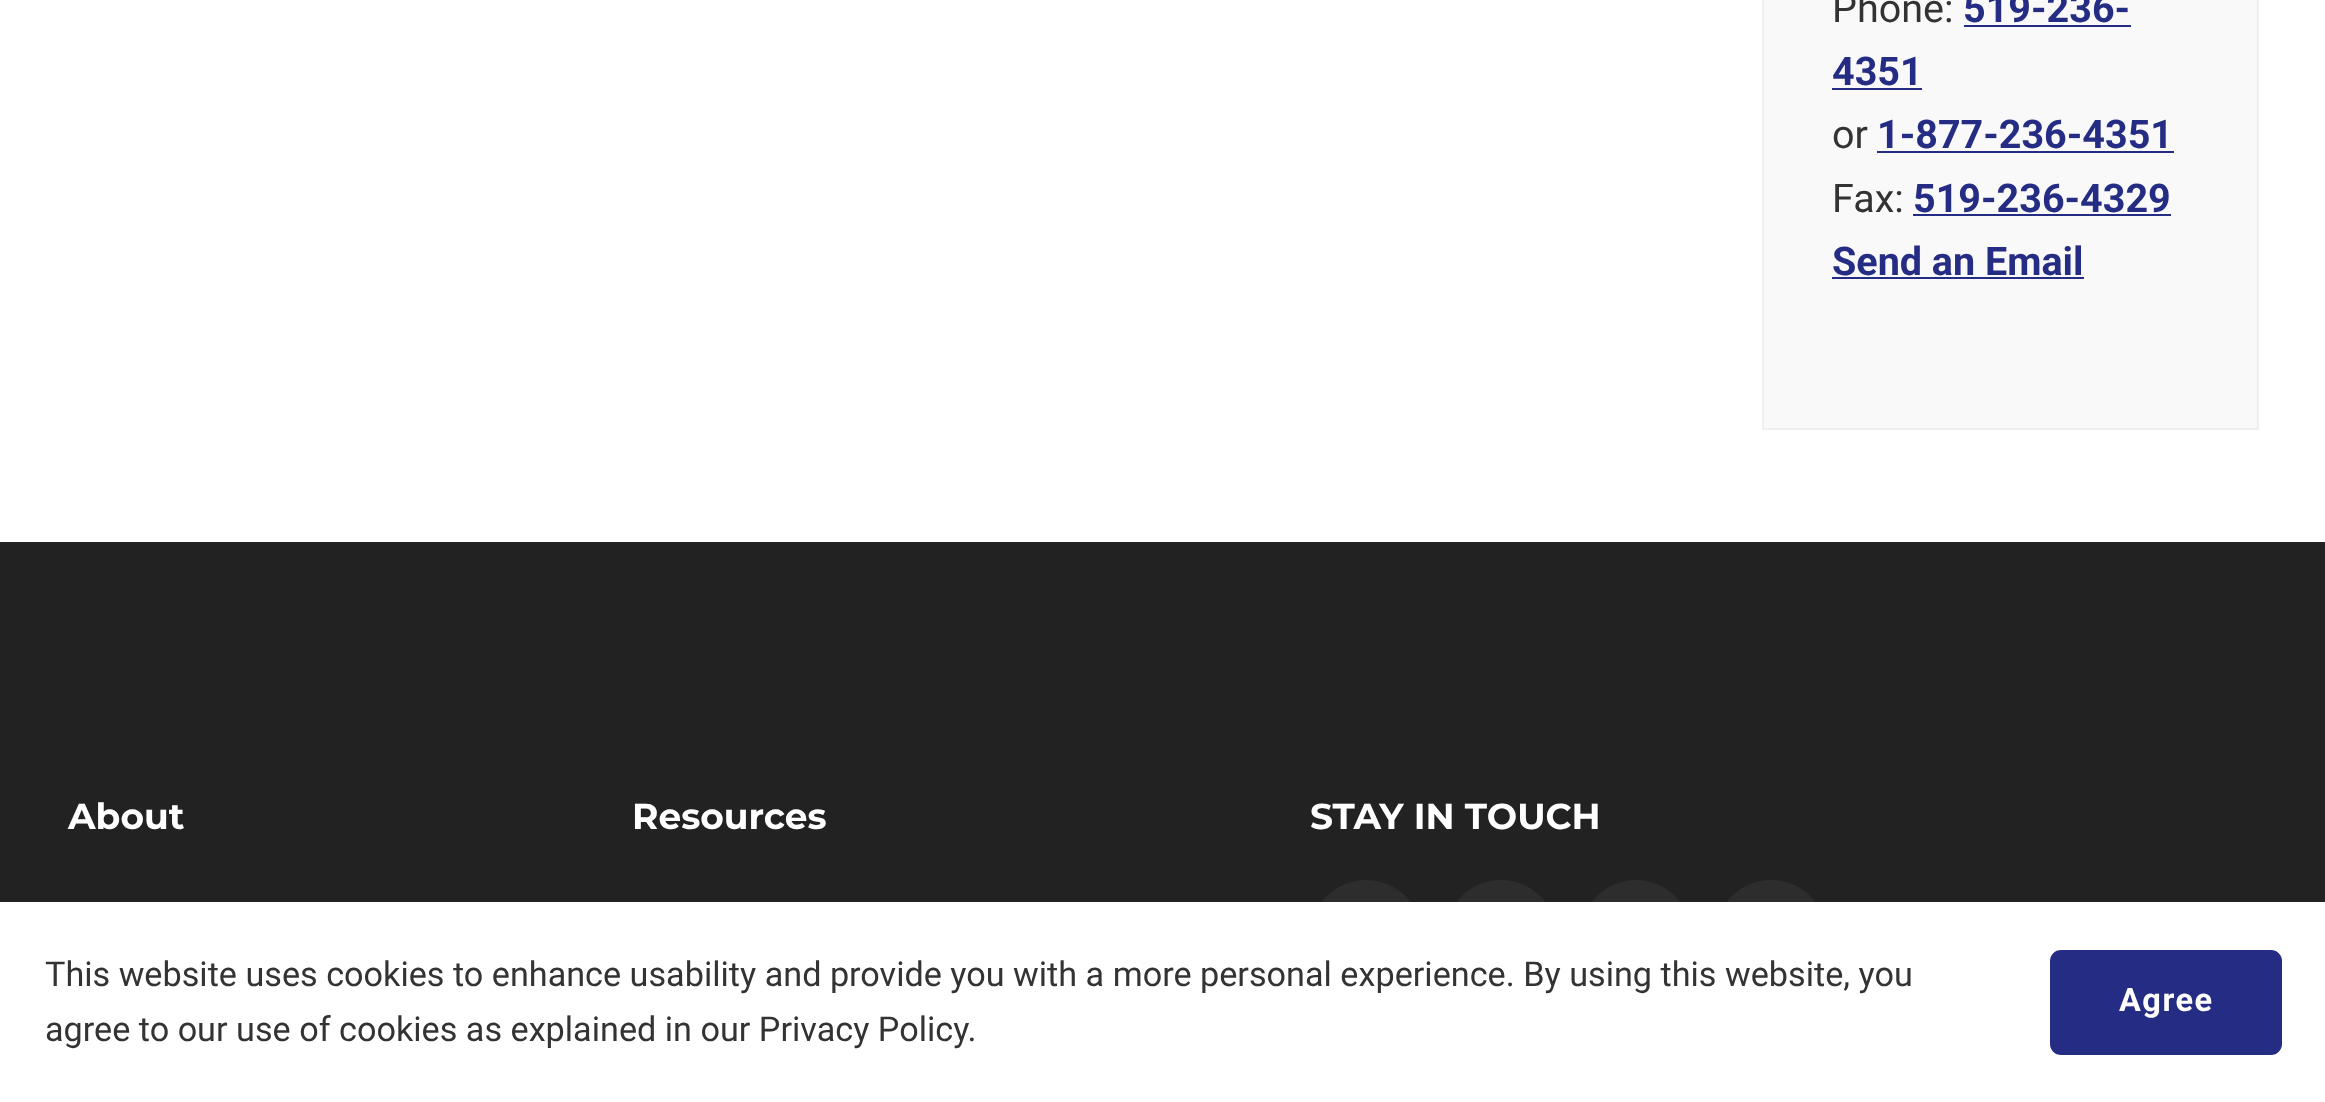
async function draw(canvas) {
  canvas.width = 2325
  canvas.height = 1102
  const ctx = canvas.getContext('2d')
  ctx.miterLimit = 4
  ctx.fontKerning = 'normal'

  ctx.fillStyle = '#fff'
  ctx.fillRect(0, 0, 2325, 1102)
  ctx.fillStyle = '#f9f9f9'
  ctx.beginPath()
  ctx.rect(1763, -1, 495, 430)
  ctx.fill()
  ctx.strokeStyle = '#efefef'
  ctx.lineWidth = 2
  ctx.stroke()
  ctx.font = '39.5px Roboto'
  ctx.fillStyle = '#333'
  ctx.fillText('Phone:', 1832, 22)
  ctx.font = 'bold 39.5px Roboto'
  ctx.fillStyle = '#252c83'
  ctx.fillText('519-236-', 1963, 22)
  ctx.fillRect(1964, 25, 167, 2)
  ctx.fillText('4351', 1832, 85)
  ctx.fillRect(1832, 88, 90, 2)
  ctx.font = '39.5px Roboto'
  ctx.fillStyle = '#333'
  ctx.fillText('or', 1832, 148)
  ctx.font = 'bold 39.5px Roboto'
  ctx.fillStyle = '#252c83'
  ctx.fillText('1-877-236-4351', 1877, 148)
  ctx.fillRect(1877, 151, 297, 2)
  ctx.font = '39.5px Roboto'
  ctx.fillStyle = '#333'
  ctx.fillText('Fax:', 1832, 212)
  ctx.font = 'bold 39.5px Roboto'
  ctx.fillStyle = '#252c83'
  ctx.fillText('519-236-4329', 1913, 212)
  ctx.fillRect(1913, 214, 258, 2)
  ctx.fillText('Send an Email', 1832, 275)
  ctx.fillRect(1832, 277, 252, 2)
  ctx.fillStyle = '#222'
  ctx.fillRect(0, 542, 2325, 360)
  ctx.font = 'bold 36px Montserrat'
  ctx.fillStyle = '#fff'
  ctx.fillText('About', 68, 829)
  ctx.fillText('Resources', 632, 829)
  ctx.fillText('STAY IN TOUCH', 1310, 829)
  ctx.fillStyle = '#2d2d2d'
  ctx.beginPath()
  ctx.arc(1366, 936, 56, 0, 2 * Math.PI)
  ctx.fill()
  ctx.beginPath()
  ctx.arc(1501, 936, 56, 0, 2 * Math.PI)
  ctx.fill()
  ctx.beginPath()
  ctx.arc(1636, 936, 56, 0, 2 * Math.PI)
  ctx.fill()
  ctx.beginPath()
  ctx.arc(1771, 936, 56, 0, 2 * Math.PI)
  ctx.fill()
  ctx.fillStyle = '#fff'
  ctx.fillRect(1310, 902, 517, 90)
  ctx.font = '34.2px Roboto'
  ctx.fillStyle = '#333'
  ctx.fillText('This website uses cookies to enhance usability and provide you with a more personal experience. By using this website, you', 45, 986)
  ctx.fillText('agree to our use of cookies as explained in our Privacy Policy.', 45, 1041)
  ctx.fillStyle = '#252c83'
  ctx.beginPath()
  ctx.roundRect(2052.5, 952.5, 227, 100, 8.5)
  ctx.fill()
  ctx.strokeStyle = '#252c83'
  ctx.lineWidth = 5
  ctx.stroke()
  ctx.letterSpacing = '1.5px'
  ctx.font = 'bold 32.5px Roboto'
  ctx.fillStyle = '#fff'
  ctx.fillText('Agree', 2119, 1011)
}

draw(document.querySelector('canvas'))
